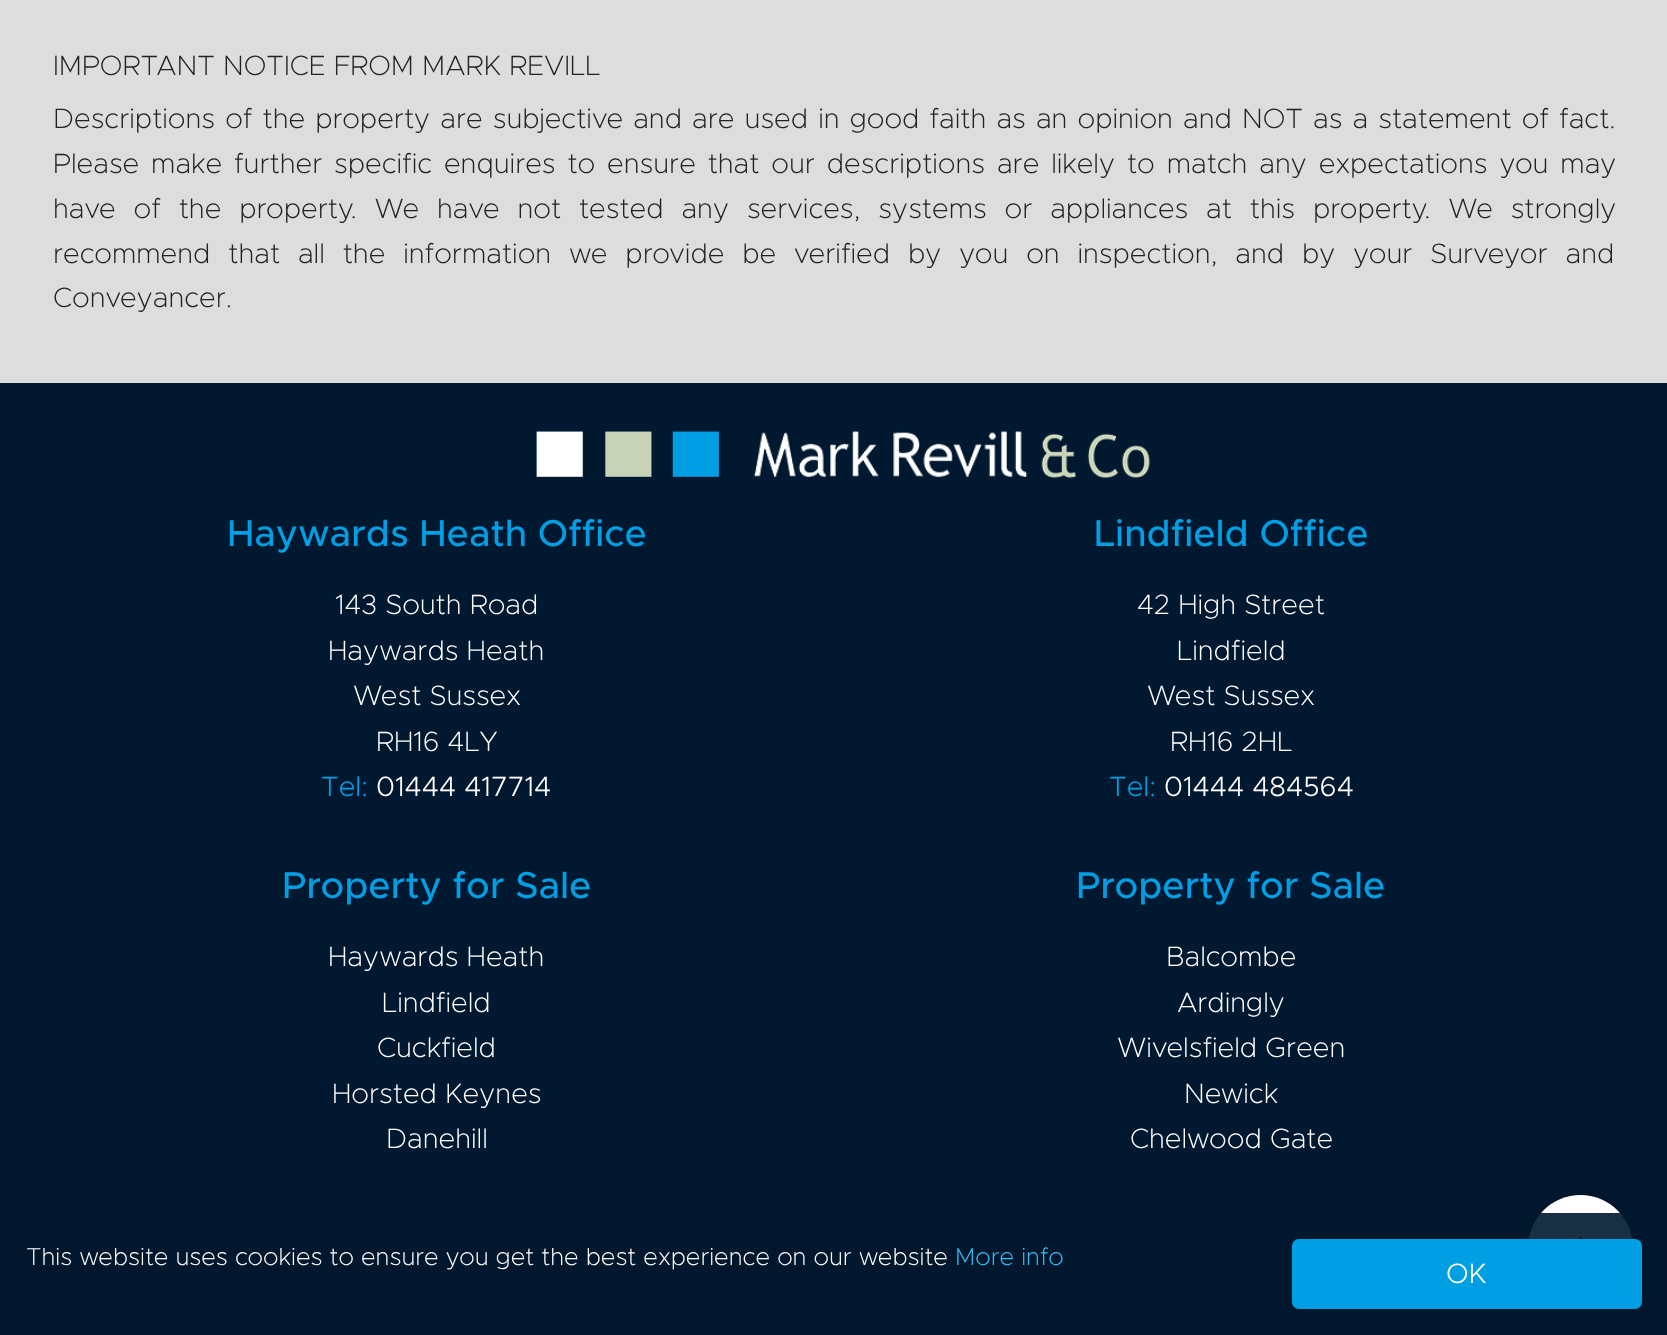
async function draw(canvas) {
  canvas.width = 1667
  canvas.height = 1335
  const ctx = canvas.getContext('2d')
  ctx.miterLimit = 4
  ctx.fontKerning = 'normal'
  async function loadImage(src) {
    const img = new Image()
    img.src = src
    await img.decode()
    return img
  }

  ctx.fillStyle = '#ddd'
  ctx.fillRect(0, 0, 1667, 1335)
  ctx.font = '200 28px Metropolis'
  ctx.fillStyle = '#222'
  ctx.fillText('IMPORTANT NOTICE FROM MARK REVILL', 53, 75)
  ctx.wordSpacing = '2px'
  ctx.fillText('Descriptions of the property are subjective and are used in good faith as an opinion and NOT as a statement of fact.', 53, 128)
  ctx.wordSpacing = '3.75px'
  ctx.fillText('Please make further specific enquires to ensure that our descriptions are likely to match any expectations you may', 53, 173)
  ctx.wordSpacing = '9.75px'
  ctx.fillText('have of the property. We have not tested any services, systems or appliances at this property. We strongly', 53, 218)
  ctx.fillText('recommend that all the information we provide be verified by you on inspection, and by your Surveyor and', 53, 263)
  ctx.wordSpacing = '0px'
  ctx.fillText('Conveyancer.', 53, 307)
  ctx.fillStyle = '#001830'
  ctx.fillRect(0, 383, 1667, 832)
  ctx.drawImage(await loadImage('image0.png'), 536, 431, 614, 48)
  ctx.font = '500 37.5px Metropolis'
  ctx.fillStyle = '#009fe3'
  ctx.fillText('Haywards Heath Office', 227, 546)
  ctx.font = '200 28px Metropolis'
  ctx.fillStyle = '#fff'
  ctx.fillText('143 South Road', 335, 614)
  ctx.fillText('Haywards Heath', 328, 660)
  ctx.fillText('West Sussex', 353, 705)
  ctx.fillText('RH16 4LY', 376, 751)
  ctx.font = '300 28px Metropolis'
  ctx.fillStyle = '#009fe3'
  ctx.fillText('Tel:', 321, 796)
  ctx.fillStyle = '#fff'
  ctx.fillText('01444 417714', 376, 796)
  ctx.font = '500 37.5px Metropolis'
  ctx.fillStyle = '#009fe3'
  ctx.fillText('Lindfield Office', 1094, 546)
  ctx.font = '200 28px Metropolis'
  ctx.fillStyle = '#fff'
  ctx.fillText('42 High Street', 1137, 614)
  ctx.fillText('Lindfield', 1177, 660)
  ctx.fillText('West Sussex', 1147, 705)
  ctx.fillText('RH16 2HL', 1170, 751)
  ctx.font = '300 28px Metropolis'
  ctx.fillStyle = '#009fe3'
  ctx.fillText('Tel:', 1109, 796)
  ctx.fillStyle = '#fff'
  ctx.fillText('01444 484564', 1164, 796)
  ctx.font = '500 37.5px Metropolis'
  ctx.fillStyle = '#009fe3'
  ctx.fillText('Property for Sale', 282, 898)
  ctx.font = '200 28px Metropolis'
  ctx.fillStyle = '#fff'
  ctx.fillText('Haywards Heath', 328, 966)
  ctx.fillText('Lindfield', 382, 1012)
  ctx.fillText('Cuckfield', 377, 1057)
  ctx.fillText('Horsted Keynes', 332, 1103)
  ctx.fillText('Danehill', 386, 1148)
  ctx.font = '500 37.5px Metropolis'
  ctx.fillStyle = '#009fe3'
  ctx.fillText('Property for Sale', 1076, 898)
  ctx.font = '200 28px Metropolis'
  ctx.fillStyle = '#fff'
  ctx.fillText('Balcombe', 1166, 966)
  ctx.fillText('Ardingly', 1177, 1012)
  ctx.fillText('Wivelsfield Green', 1117, 1057)
  ctx.fillText('Newick', 1184, 1103)
  ctx.fillText('Chelwood Gate', 1130, 1148)
  ctx.fillStyle = '#000b17'
  ctx.fillRect(0, 1217, 1667, 118)
  ctx.fillStyle = '#26303a'
  ctx.fillRect(0, 1215, 1667, 2)
  ctx.fillStyle = '#00000040'
  ctx.filter = 'blur(4.5px)'
  ctx.beginPath()
  ctx.roundRect(1528, 1195, 105, 105, 52.5)
  ctx.fill()
  ctx.filter = 'none'
  ctx.fillStyle = '#fff'
  ctx.beginPath()
  ctx.arc(1580.5, 1247.5, 52.5, 0, 2 * Math.PI)
  ctx.fill()
  ctx.drawImage(await loadImage('image1.png'), 1578, 1236, 6, 3)
  ctx.fillStyle = '#001830e6'
  ctx.fillRect(0, 1213, 1667, 122)
  ctx.font = '200 24.5px Metropolis'
  ctx.fillStyle = '#fff'
  ctx.fillText('This website uses cookies to ensure you get the best experience on our website', 26, 1265)
  ctx.fillStyle = '#31c1ff'
  ctx.fillText('More info', 955, 1265)
  ctx.fillStyle = '#009fe3'
  ctx.beginPath()
  ctx.roundRect(1292, 1239, 350, 70, 7)
  ctx.fill()
  ctx.font = '300 28px Metropolis'
  ctx.fillStyle = '#fff'
  ctx.fillText('OK', 1446, 1283)
}

draw(document.querySelector('canvas'))
